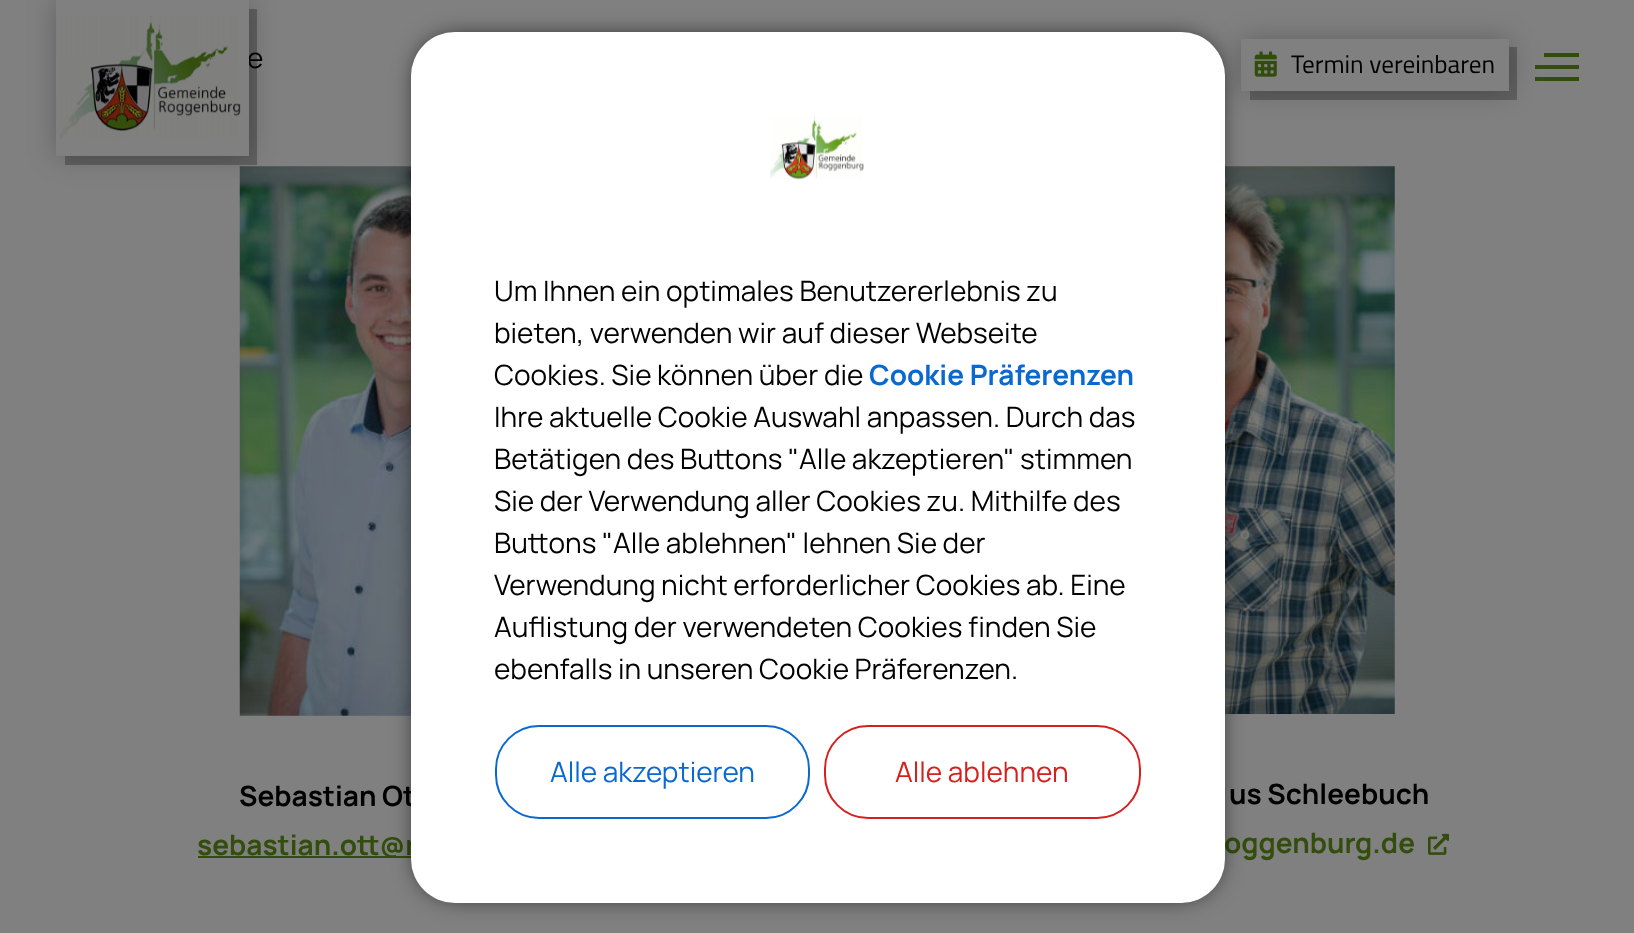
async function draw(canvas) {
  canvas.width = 1634
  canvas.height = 933
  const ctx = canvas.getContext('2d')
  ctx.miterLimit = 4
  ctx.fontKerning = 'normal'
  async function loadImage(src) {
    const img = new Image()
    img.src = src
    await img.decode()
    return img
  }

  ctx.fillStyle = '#808080'
  ctx.fillRect(0, 0, 1634, 933)
  ctx.font = '200 28px Manrope'
  ctx.fillStyle = '#000'
  ctx.fillText('e', 247, 68)
  ctx.drawImage(await loadImage('image0.png'), 239, 166, 172, 550)
  ctx.font = '200 28px "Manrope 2"'
  ctx.fillText('Sebastian Ot', 239, 806)
  ctx.fillStyle = '#334d0c'
  ctx.fillRect(198, 856, 213, 2)
  ctx.fillText('sebastian.ott@r', 197, 855)
  ctx.drawImage(await loadImage('image1.png'), 1225, 166, 170, 548)
  ctx.fillStyle = '#000'
  ctx.fillText('us Schleebuch', 1229, 804)
  ctx.fillStyle = '#334d0c'
  ctx.fillText('oggenburg.de', 1224, 853)
  ctx.drawImage(await loadImage('image2.png'), 1428, 833, 21, 22)
  ctx.fillStyle = '#00000040'
  ctx.filter = 'blur(14px)'
  ctx.beginPath()
  ctx.rect(56, 0, 193, 156)
  ctx.fill()
  ctx.filter = 'none'
  ctx.beginPath()
  ctx.moveTo(65, 156)
  ctx.lineTo(65, 165)
  ctx.lineTo(257, 165)
  ctx.lineTo(257, 9)
  ctx.lineTo(248, 9)
  ctx.lineTo(248, 156)
  ctx.closePath()
  ctx.fill()
  ctx.fillStyle = '#808080'
  ctx.fillRect(56, 0, 193, 156)
  ctx.drawImage(await loadImage('image3.png'), 59, 16, 182, 123)
  ctx.fillStyle = '#00000040'
  ctx.filter = 'blur(14px)'
  ctx.beginPath()
  ctx.rect(1241, 39, 268, 52)
  ctx.fill()
  ctx.filter = 'none'
  ctx.beginPath()
  ctx.moveTo(1250, 91)
  ctx.lineTo(1250, 100)
  ctx.lineTo(1517, 100)
  ctx.lineTo(1517, 47)
  ctx.lineTo(1508, 47)
  ctx.lineTo(1508, 91)
  ctx.closePath()
  ctx.fill()
  ctx.fillStyle = '#808080'
  ctx.fillRect(1241, 39, 268, 52)
  ctx.drawImage(await loadImage('image4.png'), 1254, 51, 23, 26)
  ctx.font = '25.25px Titillium Web'
  ctx.fillStyle = '#000'
  ctx.fillText('Termin vereinbaren', 1291, 73)
  ctx.fillStyle = '#334d0c'
  ctx.fillRect(1544, 53, 35, 4)
  ctx.fillRect(1535, 65, 44, 4)
  ctx.fillRect(1535, 77, 44, 4)
  ctx.fillStyle = '#000'
  ctx.filter = 'blur(13px)'
  ctx.beginPath()
  ctx.roundRect(420, 40, 796, 854, 35)
  ctx.fill()
  ctx.filter = 'none'
  ctx.fillStyle = '#fff'
  ctx.beginPath()
  ctx.roundRect(411, 32, 814, 871, 44)
  ctx.fill()
  ctx.drawImage(await loadImage('image5.png'), 770, 116, 94, 64)
  ctx.font = '200 28px Manrope'
  ctx.fillStyle = '#000'
  ctx.fillText('Um Ihnen ein optimales Benutzererlebnis zu', 494, 301)
  ctx.fillText('bieten, verwenden wir auf dieser Webseite', 494, 343)
  ctx.fillText('Cookies. Sie können über die', 494, 385)
  ctx.font = '200 28px "Manrope 2"'
  ctx.fillStyle = '#0a69ce'
  ctx.fillText('Cookie Präferenzen', 869, 385)
  ctx.font = '200 28px Manrope'
  ctx.fillStyle = '#000'
  ctx.fillText('Ihre aktuelle Cookie Auswahl anpassen. Durch das', 494, 427)
  ctx.fillText('Betätigen des Buttons "Alle akzeptieren" stimmen', 494, 469)
  ctx.fillText('Sie der Verwendung aller Cookies zu. Mithilfe des', 494, 511)
  ctx.fillText('Buttons "Alle ablehnen" lehnen Sie der', 494, 553)
  ctx.fillText('Verwendung nicht erforderlicher Cookies ab. Eine', 494, 595)
  ctx.fillText('Auflistung der verwendeten Cookies finden Sie', 494, 637)
  ctx.fillText('ebenfalls in unseren Cookie Präferenzen.', 494, 679)
  ctx.beginPath()
  ctx.roundRect(496, 726, 313, 92, 43)
  ctx.strokeStyle = '#0a69ce'
  ctx.lineWidth = 2
  ctx.stroke()
  ctx.fillStyle = '#0a69ce'
  ctx.fillText('Alle akzeptieren', 550, 782)
  ctx.beginPath()
  ctx.roundRect(825, 726, 315, 92, 43)
  ctx.strokeStyle = '#d52020'
  ctx.stroke()
  ctx.fillStyle = '#d52020'
  ctx.fillText('Alle ablehnen', 895, 782)
}

draw(document.querySelector('canvas'))
